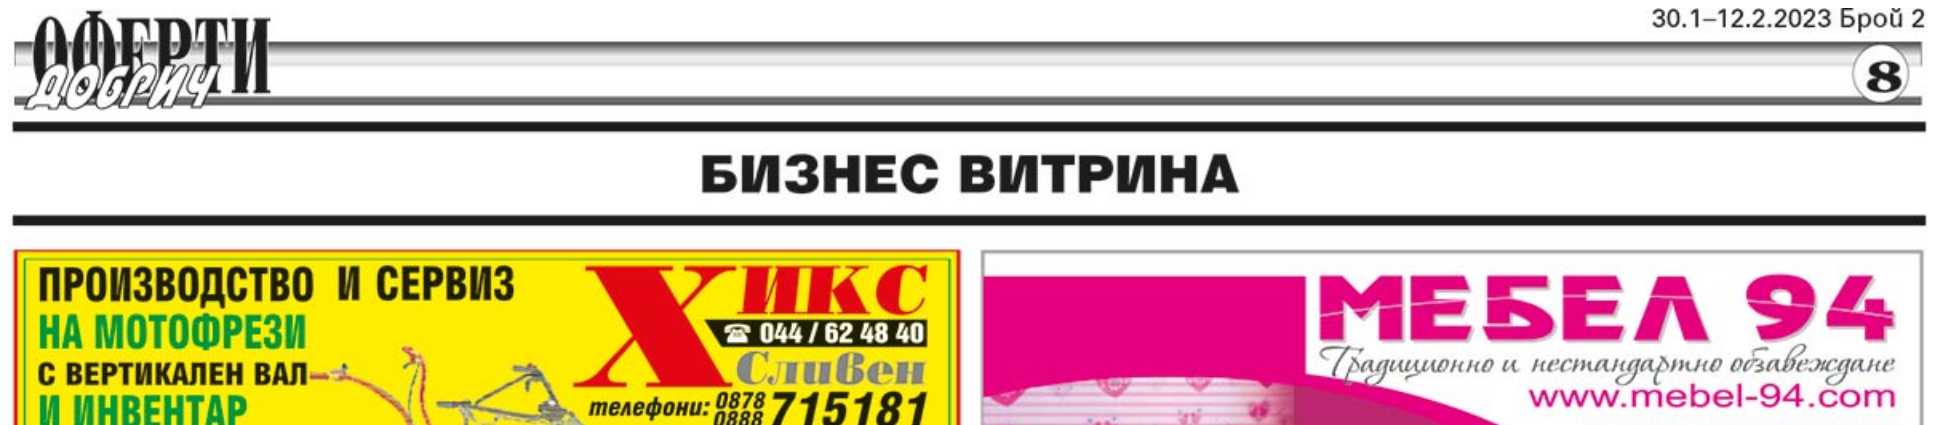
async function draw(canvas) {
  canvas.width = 1935
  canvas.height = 425
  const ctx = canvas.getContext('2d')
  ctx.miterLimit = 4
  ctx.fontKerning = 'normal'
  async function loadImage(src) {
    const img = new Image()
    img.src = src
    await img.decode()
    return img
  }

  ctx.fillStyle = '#fff'
  ctx.fillRect(0, 0, 1935, 425)
  ctx.drawImage(await loadImage('image0.png'), 8, 8, 1919, 417)
}

draw(document.querySelector('canvas'))
